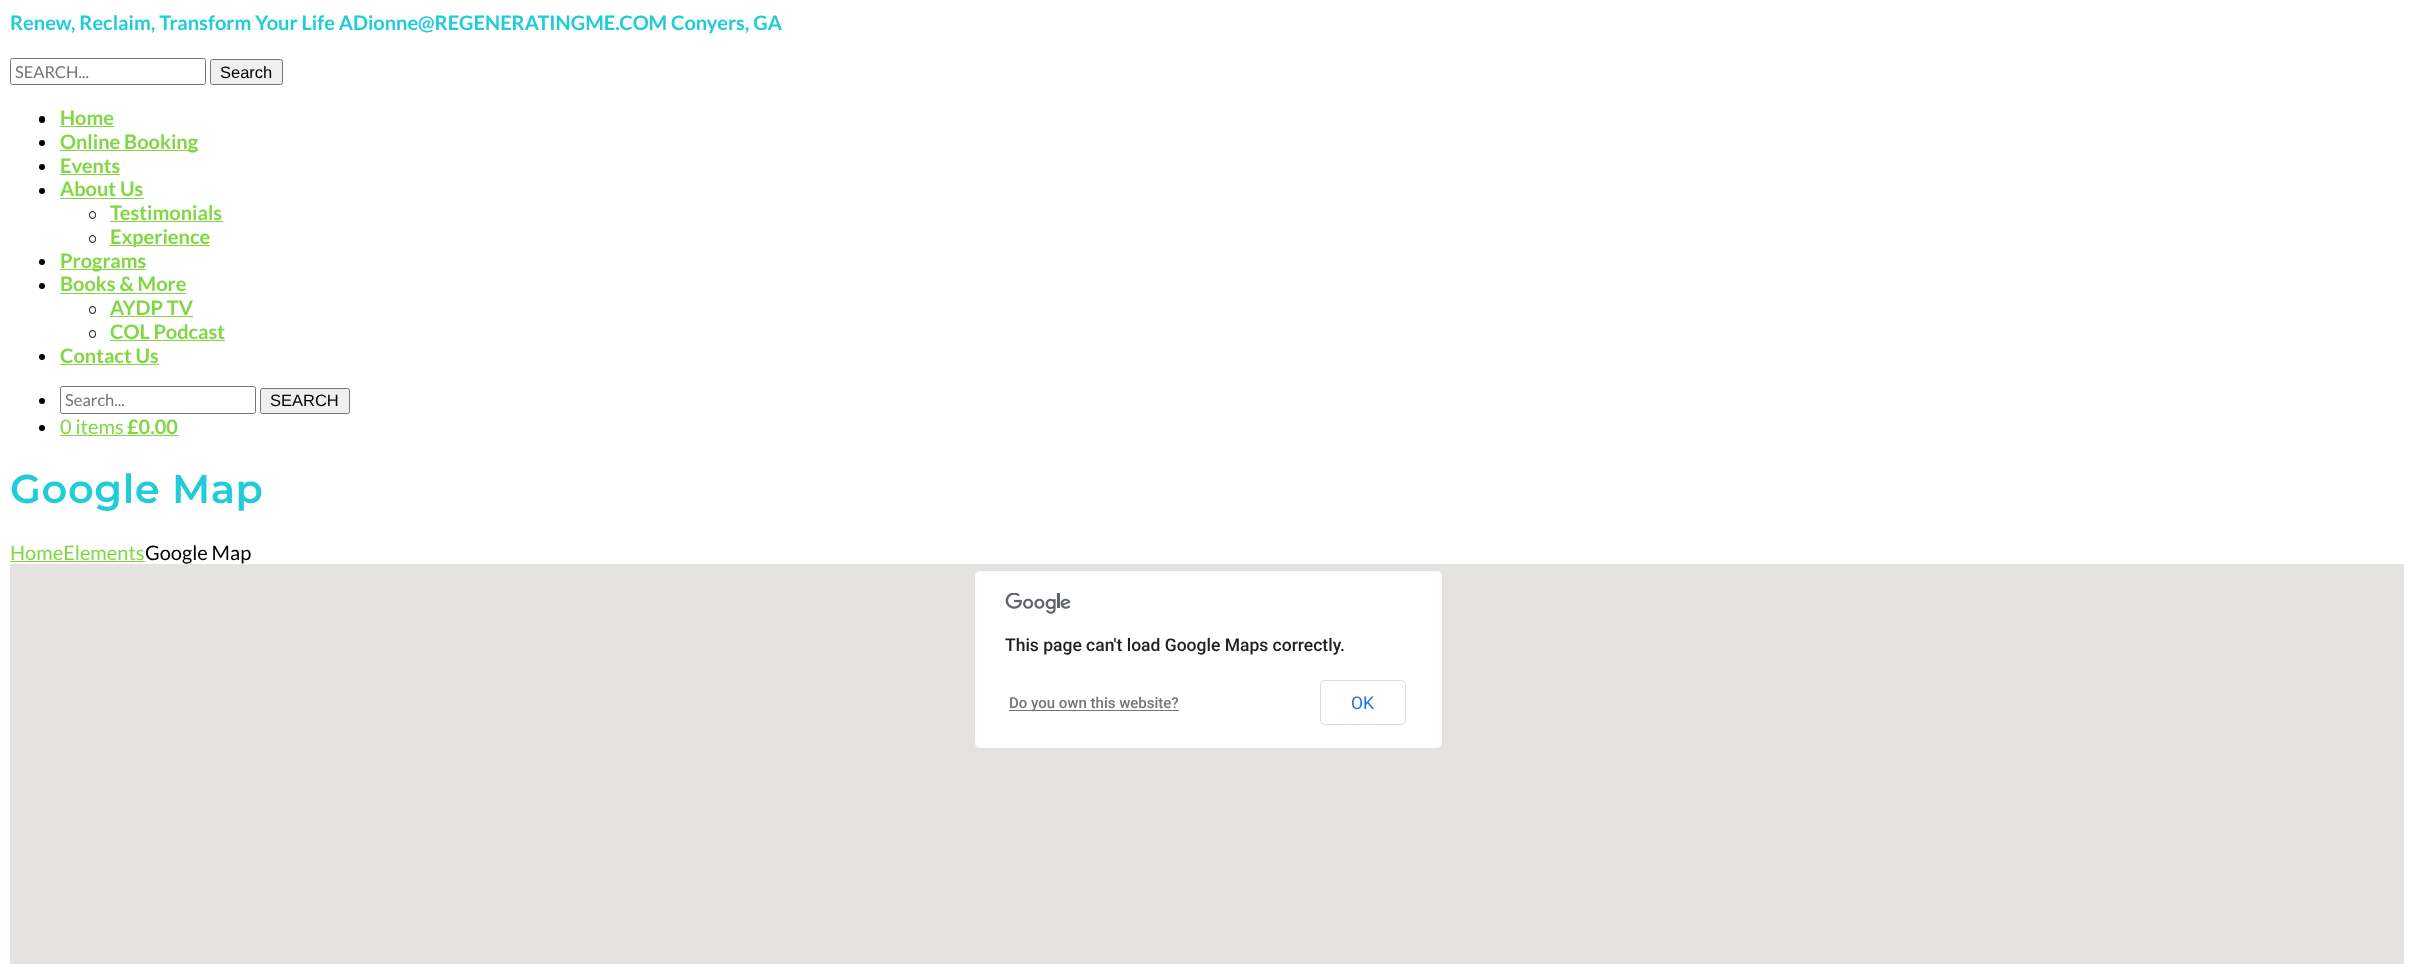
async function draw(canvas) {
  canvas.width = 2413
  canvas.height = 967
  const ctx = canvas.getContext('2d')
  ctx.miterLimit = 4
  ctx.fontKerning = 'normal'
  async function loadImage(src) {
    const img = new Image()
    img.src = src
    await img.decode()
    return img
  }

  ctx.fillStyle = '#fff'
  ctx.fillRect(0, 0, 2413, 967)
  ctx.font = 'bold 20px Lato'
  ctx.fillStyle = '#20ccd8'
  ctx.fillText('Renew, Reclaim, Transform Your Life ADionne@REGENERATINGME.COM Conyers, GA', 10, 30)
  ctx.beginPath()
  ctx.roundRect(10.5, 58.5, 195, 26, 2)
  ctx.strokeStyle = '#767676'
  ctx.stroke()
  ctx.font = '16.5px Lato'
  ctx.fillStyle = '#757575'
  ctx.fillText('SEARCH...', 15, 78)
  ctx.fillStyle = '#efefef'
  ctx.beginPath()
  ctx.roundRect(210.5, 59.5, 72, 25, 2)
  ctx.fill()
  ctx.stroke()
  ctx.font = '16.5px Liberation Sans'
  ctx.fillStyle = '#000'
  ctx.fillText('Search', 220, 78)
  ctx.beginPath()
  ctx.roundRect(39, 116, 6, 7, 3)
  ctx.fill()
  ctx.font = 'bold 20px Lato'
  ctx.fillStyle = '#81d742'
  ctx.fillText('Home', 60, 125)
  ctx.fillRect(60, 126, 54, 1)
  ctx.fillStyle = '#000'
  ctx.beginPath()
  ctx.arc(42, 143, 3, 0, 2 * Math.PI)
  ctx.fill()
  ctx.fillStyle = '#81d742'
  ctx.fillRect(60, 150, 138, 1)
  ctx.fillText('Online Booking', 60, 149)
  ctx.fillStyle = '#000'
  ctx.beginPath()
  ctx.arc(42, 167, 3, 0, 2 * Math.PI)
  ctx.fill()
  ctx.fillStyle = '#81d742'
  ctx.fillText('Events', 60, 173)
  ctx.fillRect(60, 174, 60, 1)
  ctx.fillStyle = '#000'
  ctx.beginPath()
  ctx.arc(42, 191, 3, 0, 2 * Math.PI)
  ctx.fill()
  ctx.fillStyle = '#81d742'
  ctx.fillText('About Us', 60, 196)
  ctx.fillRect(60, 198, 84, 1)
  ctx.beginPath()
  ctx.roundRect(89.5, 211.5, 6, 7, 3)
  ctx.strokeStyle = '#000'
  ctx.stroke()
  ctx.fillText('Testimonials', 110, 220)
  ctx.fillRect(110, 221, 113, 1)
  ctx.beginPath()
  ctx.roundRect(89.5, 235.5, 6, 7, 3)
  ctx.stroke()
  ctx.fillRect(110, 245, 100, 1)
  ctx.fillText('Experience', 110, 244)
  ctx.fillStyle = '#000'
  ctx.beginPath()
  ctx.arc(42, 262, 3, 0, 2 * Math.PI)
  ctx.fill()
  ctx.fillStyle = '#81d742'
  ctx.fillRect(60, 269, 86, 1)
  ctx.fillText('Programs', 60, 268)
  ctx.fillStyle = '#000'
  ctx.beginPath()
  ctx.arc(42, 286, 3, 0, 2 * Math.PI)
  ctx.fill()
  ctx.fillStyle = '#81d742'
  ctx.fillText('Books & More', 60, 291)
  ctx.fillRect(60, 293, 126, 1)
  ctx.beginPath()
  ctx.roundRect(89.5, 306.5, 6, 7, 3)
  ctx.stroke()
  ctx.fillText('AYDP TV', 110, 315)
  ctx.fillRect(110, 316, 83, 1)
  ctx.beginPath()
  ctx.roundRect(89.5, 330.5, 6, 7, 3)
  ctx.stroke()
  ctx.fillText('COL Podcast', 110, 339)
  ctx.fillRect(110, 340, 115, 1)
  ctx.fillStyle = '#000'
  ctx.beginPath()
  ctx.arc(42, 357, 3, 0, 2 * Math.PI)
  ctx.fill()
  ctx.fillStyle = '#81d742'
  ctx.fillText('Contact Us', 60, 363)
  ctx.fillRect(60, 364, 99, 1)
  ctx.fillStyle = '#000'
  ctx.beginPath()
  ctx.arc(42, 401, 3, 0, 2 * Math.PI)
  ctx.fill()
  ctx.beginPath()
  ctx.roundRect(60.5, 386.5, 195, 27, 2)
  ctx.strokeStyle = '#767676'
  ctx.stroke()
  ctx.font = '16.5px Lato'
  ctx.fillStyle = '#757575'
  ctx.fillText('Search...', 65, 406)
  ctx.fillStyle = '#efefef'
  ctx.beginPath()
  ctx.roundRect(260.5, 388.5, 89, 25, 2)
  ctx.fill()
  ctx.stroke()
  ctx.font = '16.5px Liberation Sans'
  ctx.fillStyle = '#000'
  ctx.fillText('SEARCH', 270, 406)
  ctx.beginPath()
  ctx.arc(42, 428, 3, 0, 2 * Math.PI)
  ctx.fill()
  ctx.font = '20px Lato'
  ctx.fillStyle = '#81d742'
  ctx.fillText('0 items', 60, 434)
  ctx.fillRect(60, 435, 119, 1)
  ctx.font = 'bold 20px Lato'
  ctx.fillText('£0.00', 127, 434)
  ctx.letterSpacing = '0.6px'
  ctx.font = '600 40px Montserrat'
  ctx.fillStyle = '#20ccd8'
  ctx.fillText('Google Map', 10, 503)
  ctx.letterSpacing = '0px'
  ctx.font = '20px Lato'
  ctx.fillStyle = '#81d742'
  ctx.fillText('HomeElements', 10, 560)
  ctx.fillRect(10, 561, 135, 1)
  ctx.fillStyle = '#000'
  ctx.fillText('Google Map', 145, 560)
  ctx.fillStyle = '#e5e3df'
  ctx.fillRect(10, 564, 2394, 400)
  ctx.fillStyle = '#fff'
  ctx.beginPath()
  ctx.roundRect(974, 570, 469, 179, 6)
  ctx.fill()
  ctx.beginPath()
  ctx.roundRect(974.5, 570.5, 468, 178, 5.5)
  ctx.strokeStyle = '#0000001f'
  ctx.stroke()
  ctx.drawImage(await loadImage('image0.png'), 1005, 593, 65, 21)
  ctx.font = '500 17.5px Roboto'
  ctx.fillStyle = '#212121'
  ctx.fillText('This page can\'t load Google Maps correctly.', 1005, 651)
  ctx.fillStyle = '#757575'
  ctx.fillRect(1009, 710, 170, 1)
  ctx.font = '500 15px Roboto'
  ctx.fillText('Do you own this website?', 1009, 708)
  ctx.beginPath()
  ctx.roundRect(1320.5, 680.5, 85, 44, 4.5)
  ctx.strokeStyle = '#dadce0'
  ctx.stroke()
  ctx.font = '17.5px Roboto'
  ctx.fillStyle = '#1a73e8'
  ctx.fillText('OK', 1351, 709)
}

draw(document.querySelector('canvas'))
